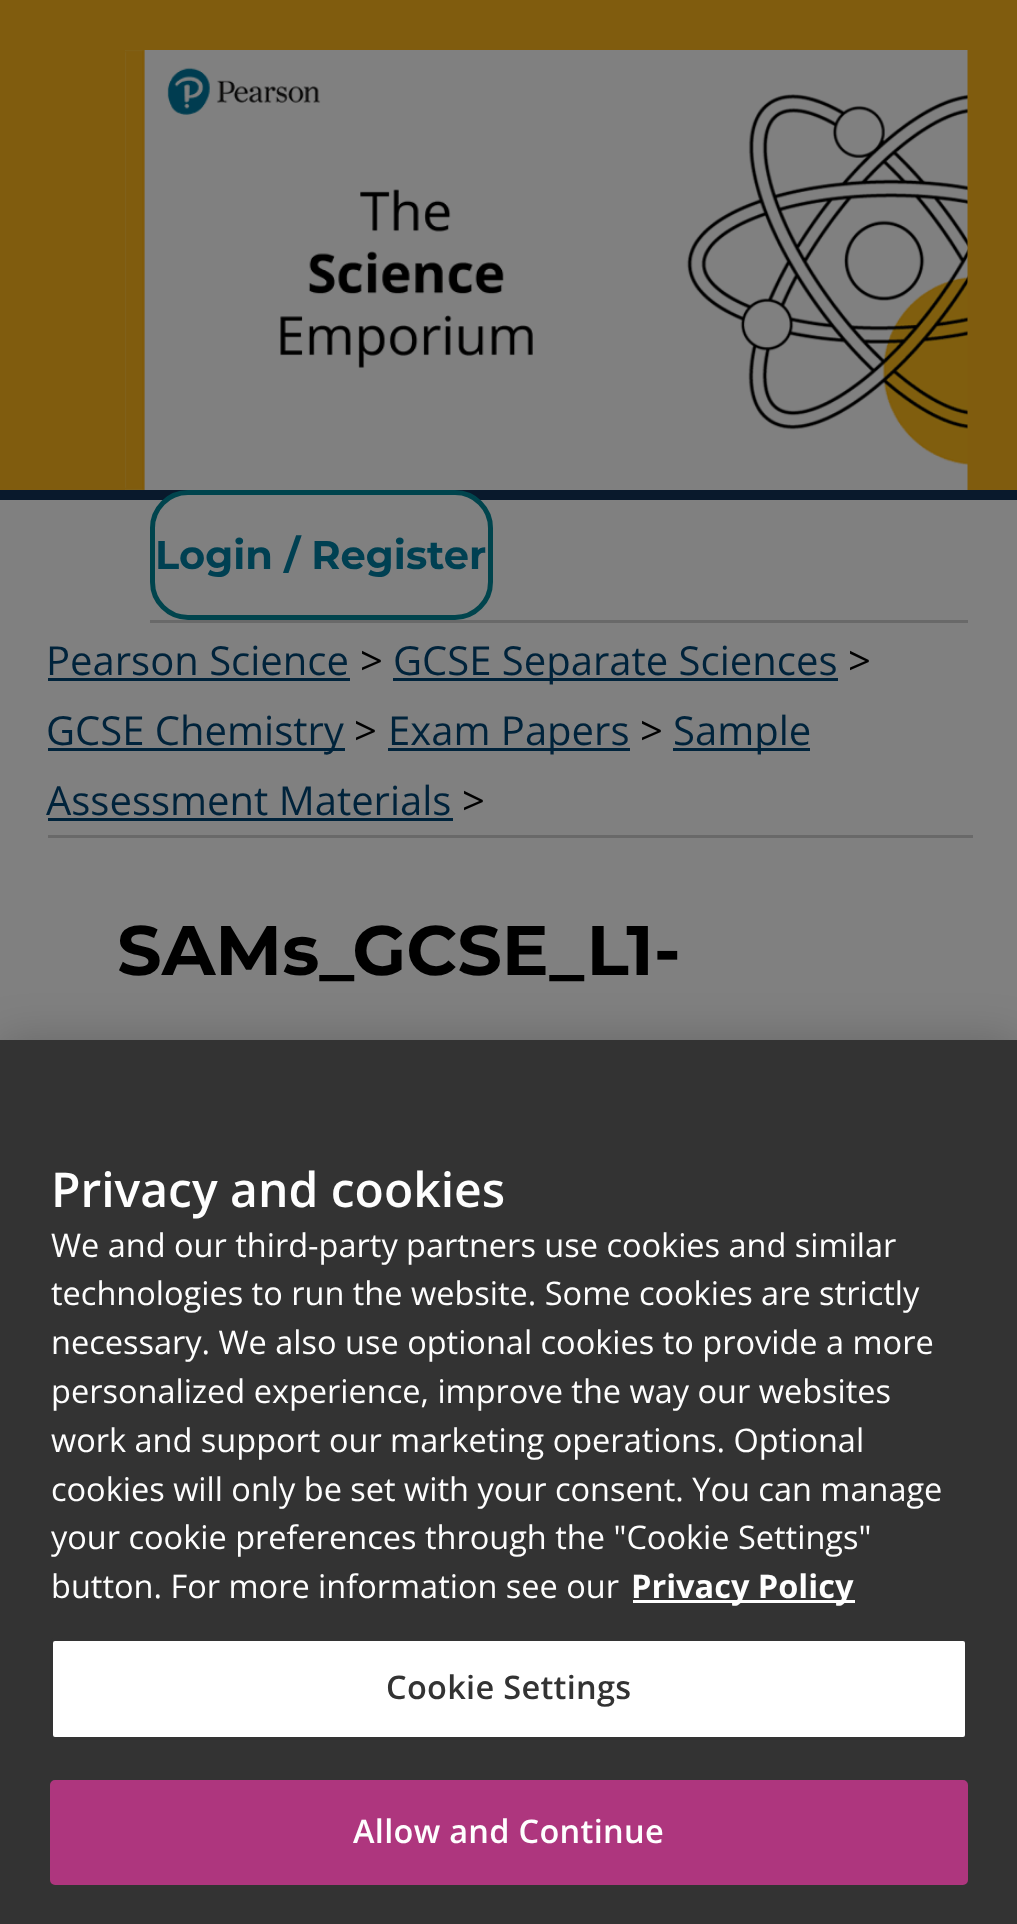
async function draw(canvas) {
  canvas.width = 1017
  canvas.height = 1924
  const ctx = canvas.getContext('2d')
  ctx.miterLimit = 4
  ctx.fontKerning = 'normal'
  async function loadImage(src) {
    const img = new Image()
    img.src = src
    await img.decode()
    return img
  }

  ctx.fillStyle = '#808080'
  ctx.fillRect(0, 0, 1017, 1924)
  ctx.fillStyle = '#805c0e'
  ctx.fillRect(0, 0, 1017, 490)
  ctx.fillStyle = '#09192c'
  ctx.fillRect(0, 490, 1017, 10)
  ctx.drawImage(await loadImage('image0.png'), 125, 50, 843, 440)
  ctx.fillStyle = '#696969'
  ctx.fillRect(150, 620, 818, 3)
  ctx.fillStyle = '#808080'
  ctx.beginPath()
  ctx.roundRect(152.5, 492.5, 338, 125, 35.5)
  ctx.fill()
  ctx.strokeStyle = '#00444d'
  ctx.lineWidth = 5
  ctx.stroke()
  ctx.font = '100 40px Montserrat'
  ctx.fillStyle = '#004052'
  ctx.fillText('Login / Register', 155, 569)
  ctx.font = '40px Open Sans'
  ctx.fillStyle = '#00233b'
  ctx.fillText('Pearson Science', 46, 675)
  ctx.fillRect(48, 678, 302, 3)
  ctx.fillStyle = '#000'
  ctx.fillText('>', 360, 675)
  ctx.fillStyle = '#00233b'
  ctx.fillRect(393, 678, 445, 3)
  ctx.fillText('GCSE Separate Sciences', 393, 675)
  ctx.fillStyle = '#000'
  ctx.fillText('>', 848, 675)
  ctx.fillStyle = '#00233b'
  ctx.fillRect(48, 748, 297, 3)
  ctx.fillText('GCSE Chemistry', 46, 745)
  ctx.fillStyle = '#000'
  ctx.fillText('>', 354, 745)
  ctx.fillStyle = '#00233b'
  ctx.fillRect(388, 748, 242, 3)
  ctx.fillText('Exam Papers', 388, 745)
  ctx.fillStyle = '#000'
  ctx.fillText('>', 640, 745)
  ctx.fillStyle = '#00233b'
  ctx.fillRect(673, 748, 137, 3)
  ctx.fillText('Sample', 673, 745)
  ctx.fillText('Assessment Materials', 46, 815)
  ctx.fillRect(48, 818, 405, 3)
  ctx.fillStyle = '#000'
  ctx.fillText('>', 462, 815)
  ctx.fillStyle = '#696969'
  ctx.fillRect(48, 835, 925, 3)
  ctx.font = '100 70px Montserrat'
  ctx.fillStyle = '#000'
  ctx.fillText('SAMs_GCSE_L1-', 117, 975)
  ctx.fillStyle = '#00000033'
  ctx.filter = 'blur(22.5px)'
  ctx.beginPath()
  ctx.rect(0, 1040, 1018, 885)
  ctx.fill()
  ctx.filter = 'none'
  ctx.fillStyle = '#333'
  ctx.fillRect(0, 1040, 1017, 884)
  ctx.font = '600 48px Open Sans'
  ctx.fillStyle = '#fefefe'
  ctx.fillText('Privacy and cookies', 51, 1207)
  ctx.font = '32.5px Open Sans'
  ctx.fillText('We and our third-party partners use cookies and similar', 51, 1257)
  ctx.fillText('technologies to run the website. Some cookies are strictly', 51, 1305)
  ctx.fillText('necessary. We also use optional cookies to provide a more', 51, 1354)
  ctx.fillText('personalized experience, improve the way our websites', 51, 1403)
  ctx.fillText('work and support our marketing operations. Optional', 51, 1452)
  ctx.fillText('cookies will only be set with your consent. You can manage', 51, 1501)
  ctx.fillText('your cookie preferences through the "Cookie Settings"', 51, 1549)
  ctx.fillText('button. For more information see our', 51, 1598)
  ctx.fillRect(633, 1600, 222, 3)
  ctx.font = 'bold 32.5px Open Sans'
  ctx.fillText('Privacy Policy', 631, 1598)
  ctx.fillStyle = '#fff'
  ctx.beginPath()
  ctx.roundRect(51.5, 1639.5, 915, 99, 3.5)
  ctx.fill()
  ctx.strokeStyle = '#333'
  ctx.lineWidth = 3
  ctx.stroke()
  ctx.letterSpacing = '0.3px'
  ctx.font = '600 32.5px Open Sans'
  ctx.fillStyle = '#333'
  ctx.fillText('Cookie Settings', 386, 1699)
  ctx.fillStyle = '#ae367e'
  ctx.beginPath()
  ctx.roundRect(51.5, 1781.5, 915, 102, 3.5)
  ctx.fill()
  ctx.strokeStyle = '#ae367e'
  ctx.stroke()
  ctx.fillStyle = '#fefefe'
  ctx.fillText('Allow and Continue', 353, 1843)
}

draw(document.querySelector('canvas'))
